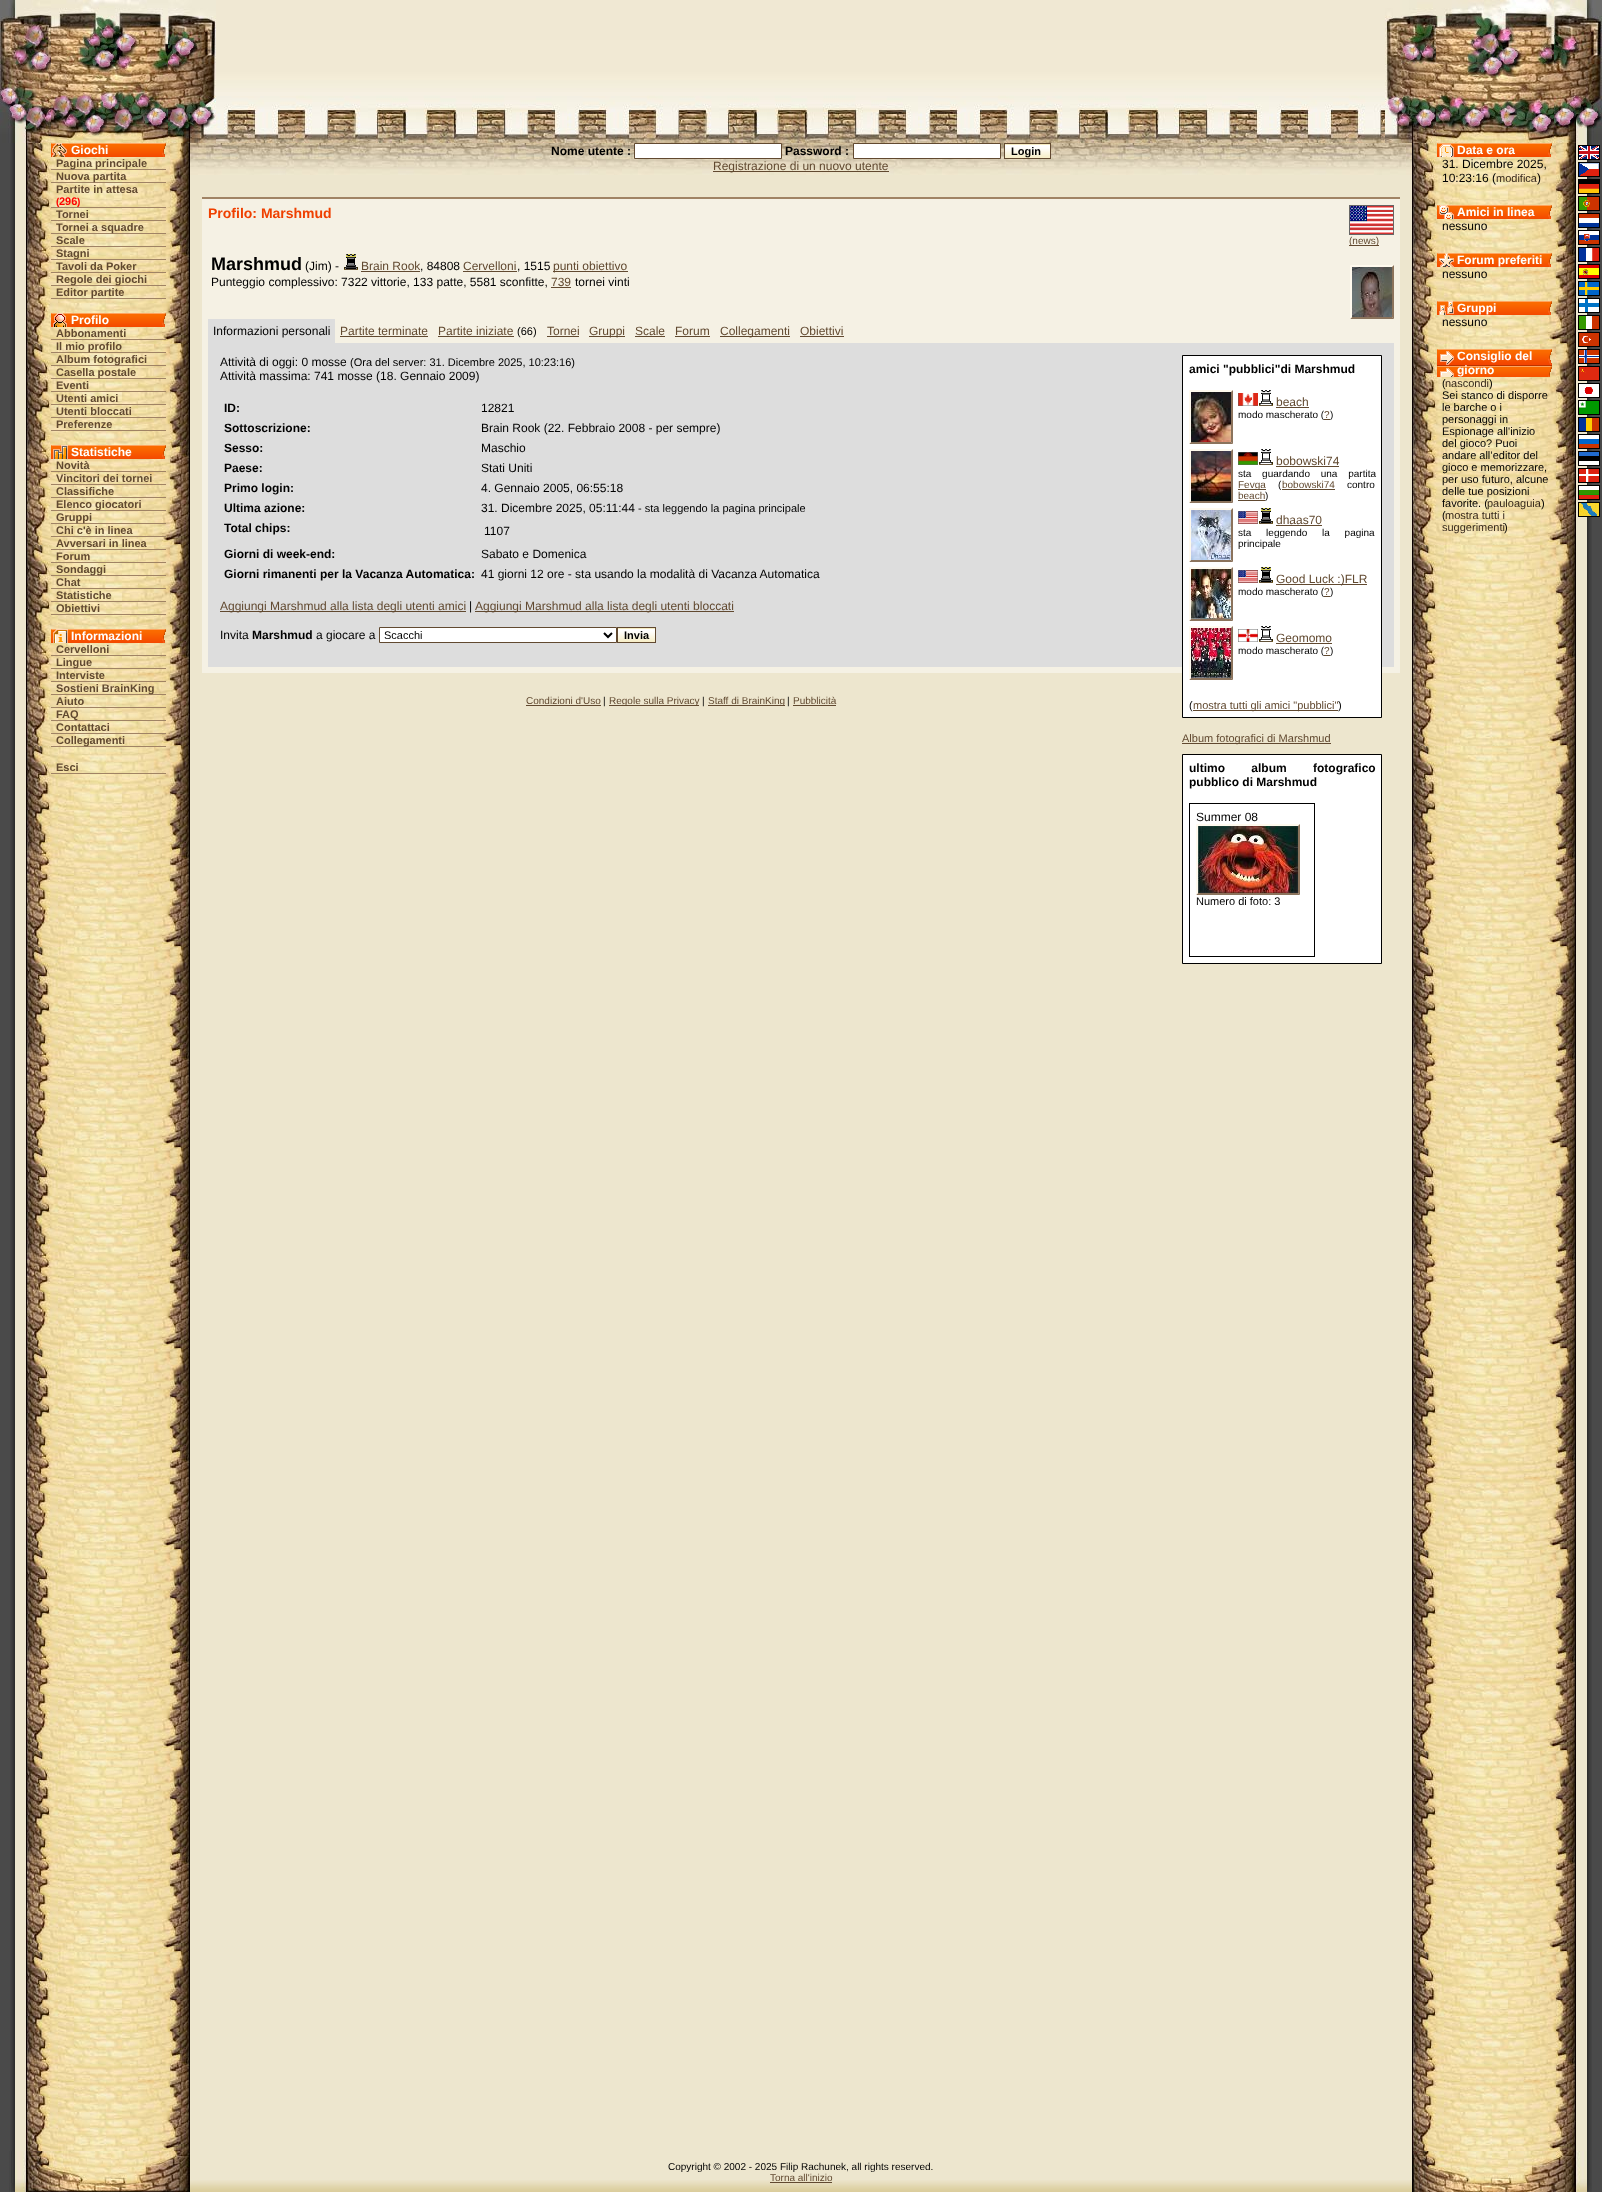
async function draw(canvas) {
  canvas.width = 1602
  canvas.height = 2192
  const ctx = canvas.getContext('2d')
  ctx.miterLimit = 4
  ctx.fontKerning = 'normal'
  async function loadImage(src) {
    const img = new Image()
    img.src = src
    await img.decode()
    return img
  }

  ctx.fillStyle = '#4a4a4a'
  ctx.fillRect(0, 0, 1602, 2192)
  ctx.drawImage(await loadImage('image0.png'), 0, 0, 51, 143)
  ctx.drawImage(await loadImage('image1.png'), 51, 0, 117, 143)
  ctx.drawImage(await loadImage('image2.png'), 168, 0, 48, 143)
  ctx.drawImage(await loadImage('image3.png'), 216, 0, 1169, 143)
  ctx.drawImage(await loadImage('image4.png'), 1385, 0, 51, 143)
  ctx.drawImage(await loadImage('image5.png'), 1436, 0, 118, 143)
  ctx.drawImage(await loadImage('image6.png'), 1554, 0, 48, 143)
  ctx.drawImage(await loadImage('image7.png'), 10, 143, 16, 2008)
  ctx.drawImage(await loadImage('image8.png'), 26, 143, 164, 2008)
  ctx.drawImage(await loadImage('image9.png'), 51, 143, 115, 14)
  ctx.font = 'bold 12px Liberation Sans'
  ctx.fillStyle = '#fff'
  ctx.fillText('Giochi', 71, 154)
  ctx.fillStyle = '#a08364'
  ctx.fillRect(51, 169, 115, 1)
  ctx.font = 'bold 11px Liberation Sans'
  ctx.fillStyle = '#614930'
  ctx.fillText('Pagina principale', 56, 167)
  ctx.fillStyle = '#a08364'
  ctx.fillRect(51, 182, 115, 1)
  ctx.fillStyle = '#614930'
  ctx.fillText('Nuova partita', 56, 180)
  ctx.fillStyle = '#a08364'
  ctx.fillRect(51, 207, 115, 1)
  ctx.fillStyle = '#614930'
  ctx.fillText('Partite in attesa', 56, 193)
  ctx.font = 'bold 10px Liberation Sans'
  ctx.fillStyle = '#f00'
  ctx.fillText('(', 56, 205)
  ctx.font = 'bold 11px Liberation Sans'
  ctx.fillText('296', 59, 205)
  ctx.font = 'bold 10px Liberation Sans'
  ctx.fillText(')', 77, 205)
  ctx.fillStyle = '#a08364'
  ctx.fillRect(51, 220, 115, 1)
  ctx.font = 'bold 11px Liberation Sans'
  ctx.fillStyle = '#614930'
  ctx.fillText('Tornei', 56, 218)
  ctx.fillStyle = '#a08364'
  ctx.fillRect(51, 233, 115, 1)
  ctx.fillStyle = '#614930'
  ctx.fillText('Tornei a squadre', 56, 231)
  ctx.fillStyle = '#a08364'
  ctx.fillRect(51, 246, 115, 1)
  ctx.fillStyle = '#614930'
  ctx.fillText('Scale', 56, 244)
  ctx.fillStyle = '#a08364'
  ctx.fillRect(51, 259, 115, 1)
  ctx.fillStyle = '#614930'
  ctx.fillText('Stagni', 56, 257)
  ctx.fillStyle = '#a08364'
  ctx.fillRect(51, 272, 115, 1)
  ctx.fillStyle = '#614930'
  ctx.fillText('Tavoli da Poker', 56, 270)
  ctx.fillStyle = '#a08364'
  ctx.fillRect(51, 285, 115, 1)
  ctx.fillStyle = '#614930'
  ctx.fillText('Regole dei giochi', 56, 283)
  ctx.fillStyle = '#a08364'
  ctx.fillRect(51, 298, 115, 1)
  ctx.fillStyle = '#614930'
  ctx.fillText('Editor partite', 56, 296)
  ctx.drawImage(await loadImage('image10.png'), 51, 313, 115, 14)
  ctx.font = 'bold 12px Liberation Sans'
  ctx.fillStyle = '#fff'
  ctx.fillText('Profilo', 71, 324)
  ctx.fillStyle = '#a08364'
  ctx.fillRect(51, 339, 115, 1)
  ctx.font = 'bold 11px Liberation Sans'
  ctx.fillStyle = '#614930'
  ctx.fillText('Abbonamenti', 56, 337)
  ctx.fillStyle = '#a08364'
  ctx.fillRect(51, 352, 115, 1)
  ctx.fillStyle = '#614930'
  ctx.fillText('Il mio profilo', 56, 350)
  ctx.fillStyle = '#a08364'
  ctx.fillRect(51, 365, 115, 1)
  ctx.fillStyle = '#614930'
  ctx.fillText('Album fotografici', 56, 363)
  ctx.fillStyle = '#a08364'
  ctx.fillRect(51, 378, 115, 1)
  ctx.fillStyle = '#614930'
  ctx.fillText('Casella postale', 56, 376)
  ctx.fillStyle = '#a08364'
  ctx.fillRect(51, 391, 115, 1)
  ctx.fillStyle = '#614930'
  ctx.fillText('Eventi', 56, 389)
  ctx.fillStyle = '#a08364'
  ctx.fillRect(51, 404, 115, 1)
  ctx.fillStyle = '#614930'
  ctx.fillText('Utenti amici', 56, 402)
  ctx.fillStyle = '#a08364'
  ctx.fillRect(51, 417, 115, 1)
  ctx.fillStyle = '#614930'
  ctx.fillText('Utenti bloccati', 56, 415)
  ctx.fillStyle = '#a08364'
  ctx.fillRect(51, 430, 115, 1)
  ctx.fillStyle = '#614930'
  ctx.fillText('Preferenze', 56, 428)
  ctx.drawImage(await loadImage('image11.png'), 51, 445, 115, 14)
  ctx.font = 'bold 12px Liberation Sans'
  ctx.fillStyle = '#fff'
  ctx.fillText('Statistiche', 71, 456)
  ctx.fillStyle = '#a08364'
  ctx.fillRect(51, 471, 115, 1)
  ctx.font = 'bold 11px Liberation Sans'
  ctx.fillStyle = '#614930'
  ctx.fillText('Novità', 56, 469)
  ctx.fillStyle = '#a08364'
  ctx.fillRect(51, 484, 115, 1)
  ctx.fillStyle = '#614930'
  ctx.fillText('Vincitori dei tornei', 56, 482)
  ctx.fillStyle = '#a08364'
  ctx.fillRect(51, 497, 115, 1)
  ctx.fillStyle = '#614930'
  ctx.fillText('Classifiche', 56, 495)
  ctx.fillStyle = '#a08364'
  ctx.fillRect(51, 510, 115, 1)
  ctx.fillStyle = '#614930'
  ctx.fillText('Elenco giocatori', 56, 508)
  ctx.fillStyle = '#a08364'
  ctx.fillRect(51, 523, 115, 1)
  ctx.fillStyle = '#614930'
  ctx.fillText('Gruppi', 56, 521)
  ctx.fillStyle = '#a08364'
  ctx.fillRect(51, 536, 115, 1)
  ctx.fillStyle = '#614930'
  ctx.fillText('Chi c\'è in linea', 56, 534)
  ctx.fillStyle = '#a08364'
  ctx.fillRect(51, 549, 115, 1)
  ctx.fillStyle = '#614930'
  ctx.fillText('Avversari in linea', 56, 547)
  ctx.fillStyle = '#a08364'
  ctx.fillRect(51, 562, 115, 1)
  ctx.fillStyle = '#614930'
  ctx.fillText('Forum', 56, 560)
  ctx.fillStyle = '#a08364'
  ctx.fillRect(51, 575, 115, 1)
  ctx.fillStyle = '#614930'
  ctx.fillText('Sondaggi', 56, 573)
  ctx.fillStyle = '#a08364'
  ctx.fillRect(51, 588, 115, 1)
  ctx.fillStyle = '#614930'
  ctx.fillText('Chat', 56, 586)
  ctx.fillStyle = '#a08364'
  ctx.fillRect(51, 601, 115, 1)
  ctx.fillStyle = '#614930'
  ctx.fillText('Statistiche', 56, 599)
  ctx.fillStyle = '#a08364'
  ctx.fillRect(51, 614, 115, 1)
  ctx.fillStyle = '#614930'
  ctx.fillText('Obiettivi', 56, 612)
  ctx.drawImage(await loadImage('image12.png'), 51, 629, 115, 14)
  ctx.font = 'bold 12px Liberation Sans'
  ctx.fillStyle = '#fff'
  ctx.fillText('Informazioni', 71, 640)
  ctx.fillStyle = '#a08364'
  ctx.fillRect(51, 655, 115, 1)
  ctx.font = 'bold 11px Liberation Sans'
  ctx.fillStyle = '#614930'
  ctx.fillText('Cervelloni', 56, 653)
  ctx.fillStyle = '#a08364'
  ctx.fillRect(51, 668, 115, 1)
  ctx.fillStyle = '#614930'
  ctx.fillText('Lingue', 56, 666)
  ctx.fillStyle = '#a08364'
  ctx.fillRect(51, 681, 115, 1)
  ctx.fillStyle = '#614930'
  ctx.fillText('Interviste', 56, 679)
  ctx.fillStyle = '#a08364'
  ctx.fillRect(51, 694, 115, 1)
  ctx.fillStyle = '#614930'
  ctx.fillText('Sostieni BrainKing', 56, 692)
  ctx.fillStyle = '#a08364'
  ctx.fillRect(51, 707, 115, 1)
  ctx.fillStyle = '#614930'
  ctx.fillText('Aiuto', 56, 705)
  ctx.fillStyle = '#a08364'
  ctx.fillRect(51, 720, 115, 1)
  ctx.fillStyle = '#614930'
  ctx.fillText('FAQ', 56, 718)
  ctx.fillStyle = '#a08364'
  ctx.fillRect(51, 733, 115, 1)
  ctx.fillStyle = '#614930'
  ctx.fillText('Contattaci', 56, 731)
  ctx.fillStyle = '#a08364'
  ctx.fillRect(51, 746, 115, 1)
  ctx.fillStyle = '#614930'
  ctx.fillText('Collegamenti', 56, 744)
  ctx.fillStyle = '#a08364'
  ctx.fillRect(51, 773, 115, 1)
  ctx.fillStyle = '#614930'
  ctx.fillText('Esci', 56, 771)
  ctx.fillStyle = '#ede6ce'
  ctx.fillRect(190, 175, 1222, 2005)
  ctx.drawImage(await loadImage('image13.png'), 190, 143, 1222, 32)
  ctx.font = 'bold 12px Liberation Sans'
  ctx.fillStyle = '#000'
  ctx.fillText('Nome utente :', 551, 155)
  ctx.fillStyle = '#fff'
  ctx.beginPath()
  ctx.rect(634.5, 143.5, 147, 15)
  ctx.fill()
  ctx.strokeStyle = '#614930'
  ctx.stroke()
  ctx.fillStyle = '#000'
  ctx.fillText('Password :', 785, 155)
  ctx.fillStyle = '#fff'
  ctx.beginPath()
  ctx.rect(853.5, 143.5, 147, 15)
  ctx.fill()
  ctx.stroke()
  ctx.fillStyle = '#f6ecc2'
  ctx.fillRect(1005, 144, 45, 1)
  ctx.drawImage(await loadImage('image14.png'), 1005, 145, 45, 13)
  ctx.strokeRect(1004.5, 143.5, 46, 15)
  ctx.font = 'bold 11px Liberation Sans'
  ctx.fillStyle = '#000'
  ctx.fillText('Login', 1011, 155)
  ctx.fillStyle = '#614930'
  ctx.fillRect(713, 171, 176, 1)
  ctx.font = '12px Liberation Sans'
  ctx.fillText('Registrazione di un nuovo utente', 713, 170)
  ctx.fillStyle = '#f5f1e4'
  ctx.fillRect(202, 199, 1198, 474)
  ctx.fillStyle = '#a08364'
  ctx.fillRect(202, 197, 1198, 2)
  ctx.font = 'bold 14px Liberation Sans'
  ctx.fillStyle = '#ef4000'
  ctx.fillText('Profilo: Marshmud', 208, 218)
  ctx.drawImage(await loadImage('image15.png'), 1349, 205, 45, 30)
  ctx.fillStyle = '#614930'
  ctx.fillRect(1349, 245, 30, 1)
  ctx.font = '10px Liberation Sans'
  ctx.fillText('(news)', 1349, 244)
  ctx.font = 'bold 18px Liberation Sans'
  ctx.fillStyle = '#000'
  ctx.fillText('Marshmud', 211, 270)
  ctx.font = '12px Liberation Sans'
  ctx.fillText('(Jim) -', 305, 270)
  ctx.drawImage(await loadImage('image16.png'), 344, 254, 14, 16)
  ctx.fillStyle = '#614930'
  ctx.fillText('Brain Rook', 361, 270)
  ctx.fillRect(361, 271, 59, 1)
  ctx.fillStyle = '#000'
  ctx.fillText(', 84808', 420, 270)
  ctx.fillStyle = '#614930'
  ctx.fillText('Cervelloni', 463, 270)
  ctx.fillRect(463, 271, 54, 1)
  ctx.fillStyle = '#000'
  ctx.fillText(', 1515', 517, 270)
  ctx.fillStyle = '#614930'
  ctx.fillRect(553, 271, 75, 1)
  ctx.fillText('punti obiettivo', 553, 270)
  ctx.fillStyle = '#000'
  ctx.fillText('Punteggio complessivo: 7322 vittorie, 133 patte, 5581 sconfitte,', 211, 286)
  ctx.fillStyle = '#614930'
  ctx.fillText('739', 551, 286)
  ctx.fillRect(551, 287, 20, 1)
  ctx.fillStyle = '#000'
  ctx.fillText('tornei vinti', 575, 286)
  ctx.fillStyle = '#fffaee'
  ctx.beginPath()
  ctx.moveTo(1350, 265)
  ctx.lineTo(1394, 265)
  ctx.lineTo(1392, 267)
  ctx.lineTo(1352, 267)
  ctx.closePath()
  ctx.fill()
  ctx.fillStyle = '#8b735c'
  ctx.beginPath()
  ctx.moveTo(1394, 265)
  ctx.lineTo(1394, 319)
  ctx.lineTo(1392, 317)
  ctx.lineTo(1392, 267)
  ctx.closePath()
  ctx.fill()
  ctx.beginPath()
  ctx.moveTo(1394, 319)
  ctx.lineTo(1350, 319)
  ctx.lineTo(1352, 317)
  ctx.lineTo(1392, 317)
  ctx.closePath()
  ctx.fill()
  ctx.fillStyle = '#fffaee'
  ctx.beginPath()
  ctx.moveTo(1350, 319)
  ctx.lineTo(1350, 265)
  ctx.lineTo(1352, 267)
  ctx.lineTo(1352, 317)
  ctx.closePath()
  ctx.fill()
  ctx.drawImage(await loadImage('image17.png'), 1352, 267, 40, 50)
  ctx.fillStyle = '#ddd'
  ctx.fillRect(208, 319, 127, 24)
  ctx.fillStyle = '#000'
  ctx.fillText('Informazioni personali', 213, 335)
  ctx.fillStyle = '#614930'
  ctx.fillText('Partite terminate', 340, 335)
  ctx.fillRect(340, 336, 88, 1)
  ctx.fillText('Partite iniziate', 438, 335)
  ctx.fillRect(438, 336, 76, 1)
  ctx.font = '11px Liberation Sans'
  ctx.fillStyle = '#000'
  ctx.fillText('(66)', 517, 335)
  ctx.font = '12px Liberation Sans'
  ctx.fillStyle = '#614930'
  ctx.fillText('Tornei', 547, 335)
  ctx.fillRect(547, 336, 32, 1)
  ctx.fillRect(589, 336, 36, 1)
  ctx.fillText('Gruppi', 589, 335)
  ctx.fillText('Scale', 635, 335)
  ctx.fillRect(635, 336, 30, 1)
  ctx.fillText('Forum', 675, 335)
  ctx.fillRect(675, 336, 35, 1)
  ctx.fillRect(720, 336, 70, 1)
  ctx.fillText('Collegamenti', 720, 335)
  ctx.fillText('Obiettivi', 800, 335)
  ctx.fillRect(800, 336, 44, 1)
  ctx.fillStyle = '#ddd'
  ctx.fillRect(208, 343, 1186, 324)
  ctx.fillStyle = '#000'
  ctx.fillText('Attività di oggi: 0 mosse', 220, 366)
  ctx.font = '11px Liberation Sans'
  ctx.fillText('(Ora del server: 31. Dicembre 2025, 10:23:16)', 350, 366)
  ctx.fillStyle = '#fff'
  ctx.beginPath()
  ctx.rect(1182.5, 355.5, 199, 362)
  ctx.fill()
  ctx.strokeStyle = '#000'
  ctx.stroke()
  ctx.font = 'bold 12px Liberation Sans'
  ctx.fillStyle = '#000'
  ctx.fillText('amici "pubblici"di Marshmud', 1189, 373)
  ctx.fillStyle = '#fffaee'
  ctx.beginPath()
  ctx.moveTo(1189, 390)
  ctx.lineTo(1233, 390)
  ctx.lineTo(1231, 392)
  ctx.lineTo(1191, 392)
  ctx.closePath()
  ctx.fill()
  ctx.fillStyle = '#8b735c'
  ctx.beginPath()
  ctx.moveTo(1233, 390)
  ctx.lineTo(1233, 444)
  ctx.lineTo(1231, 442)
  ctx.lineTo(1231, 392)
  ctx.closePath()
  ctx.fill()
  ctx.beginPath()
  ctx.moveTo(1233, 444)
  ctx.lineTo(1189, 444)
  ctx.lineTo(1191, 442)
  ctx.lineTo(1231, 442)
  ctx.closePath()
  ctx.fill()
  ctx.fillStyle = '#fffaee'
  ctx.beginPath()
  ctx.moveTo(1189, 444)
  ctx.lineTo(1189, 390)
  ctx.lineTo(1191, 392)
  ctx.lineTo(1191, 442)
  ctx.closePath()
  ctx.fill()
  ctx.drawImage(await loadImage('image18.png'), 1191, 392, 40, 50)
  ctx.drawImage(await loadImage('image19.png'), 1238, 393, 20, 13)
  ctx.drawImage(await loadImage('image20.png'), 1259, 390, 14, 16)
  ctx.font = '12px Liberation Sans'
  ctx.fillStyle = '#614930'
  ctx.fillText('beach', 1276, 406)
  ctx.fillRect(1276, 407, 33, 1)
  ctx.font = '10px Liberation Sans'
  ctx.fillStyle = '#000'
  ctx.fillText('modo mascherato (', 1238, 418)
  ctx.fillStyle = '#614930'
  ctx.fillRect(1324, 419, 6, 1)
  ctx.fillText('?', 1324, 418)
  ctx.fillStyle = '#000'
  ctx.fillText(')', 1330, 418)
  ctx.fillStyle = '#fffaee'
  ctx.beginPath()
  ctx.moveTo(1189, 449)
  ctx.lineTo(1233, 449)
  ctx.lineTo(1231, 451)
  ctx.lineTo(1191, 451)
  ctx.closePath()
  ctx.fill()
  ctx.fillStyle = '#8b735c'
  ctx.beginPath()
  ctx.moveTo(1233, 449)
  ctx.lineTo(1233, 503)
  ctx.lineTo(1231, 501)
  ctx.lineTo(1231, 451)
  ctx.closePath()
  ctx.fill()
  ctx.beginPath()
  ctx.moveTo(1233, 503)
  ctx.lineTo(1189, 503)
  ctx.lineTo(1191, 501)
  ctx.lineTo(1231, 501)
  ctx.closePath()
  ctx.fill()
  ctx.fillStyle = '#fffaee'
  ctx.beginPath()
  ctx.moveTo(1189, 503)
  ctx.lineTo(1189, 449)
  ctx.lineTo(1191, 451)
  ctx.lineTo(1191, 501)
  ctx.closePath()
  ctx.fill()
  ctx.drawImage(await loadImage('image21.png'), 1191, 451, 40, 50)
  ctx.drawImage(await loadImage('image22.png'), 1238, 452, 20, 13)
  ctx.drawImage(await loadImage('image20.png'), 1259, 449, 14, 16)
  ctx.font = '12px Liberation Sans'
  ctx.fillStyle = '#614930'
  ctx.fillText('bobowski74', 1276, 465)
  ctx.fillRect(1276, 466, 63, 1)
  ctx.wordSpacing = '8px'
  ctx.font = '10px Liberation Sans'
  ctx.fillStyle = '#000'
  ctx.fillText('sta guardando una partita', 1238, 477)
  ctx.fillStyle = '#614930'
  ctx.fillRect(1238, 489, 28, 1)
  ctx.wordSpacing = '0px'
  ctx.fillText('Fevga', 1238, 488)
  ctx.fillStyle = '#000'
  ctx.fillText('(', 1278, 488)
  ctx.fillStyle = '#614930'
  ctx.fillRect(1282, 489, 53, 1)
  ctx.fillText('bobowski74', 1282, 488)
  ctx.fillStyle = '#000'
  ctx.fillText('contro', 1347, 488)
  ctx.fillStyle = '#614930'
  ctx.fillText('beach', 1238, 499)
  ctx.fillStyle = '#000'
  ctx.fillText(')', 1265, 499)
  ctx.fillStyle = '#614930'
  ctx.fillRect(1238, 500, 27, 1)
  ctx.fillStyle = '#fffaee'
  ctx.beginPath()
  ctx.moveTo(1189, 508)
  ctx.lineTo(1233, 508)
  ctx.lineTo(1231, 510)
  ctx.lineTo(1191, 510)
  ctx.closePath()
  ctx.fill()
  ctx.fillStyle = '#8b735c'
  ctx.beginPath()
  ctx.moveTo(1233, 508)
  ctx.lineTo(1233, 562)
  ctx.lineTo(1231, 560)
  ctx.lineTo(1231, 510)
  ctx.closePath()
  ctx.fill()
  ctx.beginPath()
  ctx.moveTo(1233, 562)
  ctx.lineTo(1189, 562)
  ctx.lineTo(1191, 560)
  ctx.lineTo(1231, 560)
  ctx.closePath()
  ctx.fill()
  ctx.fillStyle = '#fffaee'
  ctx.beginPath()
  ctx.moveTo(1189, 562)
  ctx.lineTo(1189, 508)
  ctx.lineTo(1191, 510)
  ctx.lineTo(1191, 560)
  ctx.closePath()
  ctx.fill()
  ctx.drawImage(await loadImage('image23.png'), 1191, 510, 40, 50)
  ctx.drawImage(await loadImage('image24.png'), 1238, 511, 20, 13)
  ctx.drawImage(await loadImage('image25.png'), 1259, 508, 14, 16)
  ctx.font = '12px Liberation Sans'
  ctx.fillStyle = '#614930'
  ctx.fillText('dhaas70', 1276, 524)
  ctx.fillRect(1276, 525, 46, 1)
  ctx.wordSpacing = '12px'
  ctx.font = '10px Liberation Sans'
  ctx.fillStyle = '#000'
  ctx.fillText('sta leggendo la pagina', 1238, 536)
  ctx.wordSpacing = '0px'
  ctx.fillText('principale', 1238, 547)
  ctx.fillStyle = '#fffaee'
  ctx.beginPath()
  ctx.moveTo(1189, 567)
  ctx.lineTo(1233, 567)
  ctx.lineTo(1231, 569)
  ctx.lineTo(1191, 569)
  ctx.closePath()
  ctx.fill()
  ctx.fillStyle = '#8b735c'
  ctx.beginPath()
  ctx.moveTo(1233, 567)
  ctx.lineTo(1233, 621)
  ctx.lineTo(1231, 619)
  ctx.lineTo(1231, 569)
  ctx.closePath()
  ctx.fill()
  ctx.beginPath()
  ctx.moveTo(1233, 621)
  ctx.lineTo(1189, 621)
  ctx.lineTo(1191, 619)
  ctx.lineTo(1231, 619)
  ctx.closePath()
  ctx.fill()
  ctx.fillStyle = '#fffaee'
  ctx.beginPath()
  ctx.moveTo(1189, 621)
  ctx.lineTo(1189, 567)
  ctx.lineTo(1191, 569)
  ctx.lineTo(1191, 619)
  ctx.closePath()
  ctx.fill()
  ctx.drawImage(await loadImage('image26.png'), 1191, 569, 40, 50)
  ctx.drawImage(await loadImage('image24.png'), 1238, 570, 20, 13)
  ctx.drawImage(await loadImage('image25.png'), 1259, 567, 14, 16)
  ctx.fillStyle = '#614930'
  ctx.fillRect(1276, 584, 91, 1)
  ctx.font = '12px Liberation Sans'
  ctx.fillText('Good Luck :)FLR', 1276, 583)
  ctx.font = '10px Liberation Sans'
  ctx.fillStyle = '#000'
  ctx.fillText('modo mascherato (', 1238, 595)
  ctx.fillStyle = '#614930'
  ctx.fillRect(1324, 596, 6, 1)
  ctx.fillText('?', 1324, 595)
  ctx.fillStyle = '#000'
  ctx.fillText(')', 1330, 595)
  ctx.fillStyle = '#fffaee'
  ctx.beginPath()
  ctx.moveTo(1189, 626)
  ctx.lineTo(1233, 626)
  ctx.lineTo(1231, 628)
  ctx.lineTo(1191, 628)
  ctx.closePath()
  ctx.fill()
  ctx.fillStyle = '#8b735c'
  ctx.beginPath()
  ctx.moveTo(1233, 626)
  ctx.lineTo(1233, 680)
  ctx.lineTo(1231, 678)
  ctx.lineTo(1231, 628)
  ctx.closePath()
  ctx.fill()
  ctx.beginPath()
  ctx.moveTo(1233, 680)
  ctx.lineTo(1189, 680)
  ctx.lineTo(1191, 678)
  ctx.lineTo(1231, 678)
  ctx.closePath()
  ctx.fill()
  ctx.fillStyle = '#fffaee'
  ctx.beginPath()
  ctx.moveTo(1189, 680)
  ctx.lineTo(1189, 626)
  ctx.lineTo(1191, 628)
  ctx.lineTo(1191, 678)
  ctx.closePath()
  ctx.fill()
  ctx.drawImage(await loadImage('image27.png'), 1191, 628, 40, 50)
  ctx.drawImage(await loadImage('image28.png'), 1238, 629, 20, 13)
  ctx.drawImage(await loadImage('image20.png'), 1259, 626, 14, 16)
  ctx.font = '12px Liberation Sans'
  ctx.fillStyle = '#614930'
  ctx.fillText('Geomomo', 1276, 642)
  ctx.fillRect(1276, 643, 56, 1)
  ctx.font = '10px Liberation Sans'
  ctx.fillStyle = '#000'
  ctx.fillText('modo mascherato (', 1238, 654)
  ctx.fillStyle = '#614930'
  ctx.fillRect(1324, 655, 6, 1)
  ctx.fillText('?', 1324, 654)
  ctx.fillStyle = '#000'
  ctx.fillText(')', 1330, 654)
  ctx.font = '11px Liberation Sans'
  ctx.fillText('(', 1189, 709)
  ctx.fillStyle = '#614930'
  ctx.fillRect(1193, 710, 145, 1)
  ctx.fillText('mostra tutti gli amici "pubblici"', 1193, 709)
  ctx.fillStyle = '#000'
  ctx.fillText(')', 1338, 709)
  ctx.fillStyle = '#614930'
  ctx.fillRect(1182, 743, 149, 1)
  ctx.fillText('Album fotografici di Marshmud', 1182, 742)
  ctx.fillStyle = '#fff'
  ctx.beginPath()
  ctx.rect(1182.5, 754.5, 199, 209)
  ctx.fill()
  ctx.stroke()
  ctx.wordSpacing = '23px'
  ctx.font = 'bold 12px Liberation Sans'
  ctx.fillStyle = '#000'
  ctx.fillText('ultimo album fotografico', 1189, 772)
  ctx.wordSpacing = '0px'
  ctx.fillText('pubblico di Marshmud', 1189, 786)
  ctx.strokeRect(1189.5, 803.5, 125, 153)
  ctx.font = '12px Liberation Sans'
  ctx.fillText('Summer 08', 1196, 821)
  ctx.fillStyle = '#fffaee'
  ctx.beginPath()
  ctx.moveTo(1196, 824)
  ctx.lineTo(1300, 824)
  ctx.lineTo(1298, 826)
  ctx.lineTo(1198, 826)
  ctx.closePath()
  ctx.fill()
  ctx.fillStyle = '#8b735c'
  ctx.beginPath()
  ctx.moveTo(1300, 824)
  ctx.lineTo(1300, 895)
  ctx.lineTo(1298, 893)
  ctx.lineTo(1298, 826)
  ctx.closePath()
  ctx.fill()
  ctx.beginPath()
  ctx.moveTo(1300, 895)
  ctx.lineTo(1196, 895)
  ctx.lineTo(1198, 893)
  ctx.lineTo(1298, 893)
  ctx.closePath()
  ctx.fill()
  ctx.fillStyle = '#fffaee'
  ctx.beginPath()
  ctx.moveTo(1196, 895)
  ctx.lineTo(1196, 824)
  ctx.lineTo(1198, 826)
  ctx.lineTo(1198, 893)
  ctx.closePath()
  ctx.fill()
  ctx.drawImage(await loadImage('image29.png'), 1198, 826, 100, 67)
  ctx.font = '11px Liberation Sans'
  ctx.fillStyle = '#000'
  ctx.fillText('Numero di foto: 3', 1196, 905)
  ctx.font = '12px Liberation Sans'
  ctx.fillText('Attività massima: 741 mosse (18. Gennaio 2009)', 220, 380)
  ctx.font = 'bold 12px Liberation Sans'
  ctx.fillText('ID:', 224, 412)
  ctx.font = '12px Liberation Sans'
  ctx.fillText('12821', 481, 412)
  ctx.font = 'bold 12px Liberation Sans'
  ctx.fillText('Sottoscrizione:', 224, 432)
  ctx.font = '12px Liberation Sans'
  ctx.fillText('Brain Rook (22. Febbraio 2008 - per sempre)', 481, 432)
  ctx.font = 'bold 12px Liberation Sans'
  ctx.fillText('Sesso:', 224, 452)
  ctx.font = '12px Liberation Sans'
  ctx.fillText('Maschio', 481, 452)
  ctx.font = 'bold 12px Liberation Sans'
  ctx.fillText('Paese:', 224, 472)
  ctx.font = '12px Liberation Sans'
  ctx.fillText('Stati Uniti', 481, 472)
  ctx.font = 'bold 12px Liberation Sans'
  ctx.fillText('Primo login:', 224, 492)
  ctx.font = '12px Liberation Sans'
  ctx.fillText('4. Gennaio 2005, 06:55:18', 481, 492)
  ctx.font = 'bold 12px Liberation Sans'
  ctx.fillText('Ultima azione:', 224, 512)
  ctx.font = '12px Liberation Sans'
  ctx.fillText('31. Dicembre 2025, 05:11:44', 481, 512)
  ctx.font = '11px Liberation Sans'
  ctx.fillText('- sta leggendo la pagina principale', 638, 512)
  ctx.font = 'bold 12px Liberation Sans'
  ctx.fillText('Total chips:', 224, 532)
  ctx.font = '12px Liberation Sans'
  ctx.fillText('1107', 484, 535)
  ctx.font = 'bold 12px Liberation Sans'
  ctx.fillText('Giorni di week-end:', 224, 558)
  ctx.font = '12px Liberation Sans'
  ctx.fillText('Sabato e Domenica', 481, 558)
  ctx.font = 'bold 12px Liberation Sans'
  ctx.fillText('Giorni rimanenti per la Vacanza Automatica:', 224, 578)
  ctx.font = '12px Liberation Sans'
  ctx.fillText('41 giorni 12 ore - sta usando la modalità di Vacanza Automatica', 481, 578)
  ctx.fillStyle = '#614930'
  ctx.fillRect(220, 611, 246, 1)
  ctx.fillText('Aggiungi Marshmud alla lista degli utenti amici', 220, 610)
  ctx.fillStyle = '#000'
  ctx.fillText('|', 469, 610)
  ctx.fillStyle = '#614930'
  ctx.fillRect(475, 611, 259, 1)
  ctx.fillText('Aggiungi Marshmud alla lista degli utenti bloccati', 475, 610)
  ctx.fillStyle = '#000'
  ctx.fillText('Invita', 220, 639)
  ctx.font = 'bold 12px Liberation Sans'
  ctx.fillText('Marshmud', 252, 639)
  ctx.font = '12px Liberation Sans'
  ctx.fillText('a giocare a', 316, 639)
  ctx.fillStyle = '#fff'
  ctx.beginPath()
  ctx.rect(379.5, 627.5, 237, 15)
  ctx.fill()
  ctx.strokeStyle = '#614930'
  ctx.stroke()
  ctx.beginPath()
  ctx.moveTo(604, 633)
  ctx.lineTo(608, 637)
  ctx.lineTo(612, 633)
  ctx.strokeStyle = '#000'
  ctx.lineWidth = 2
  ctx.stroke()
  ctx.font = '11px Liberation Sans'
  ctx.fillStyle = '#000'
  ctx.fillText('Scacchi', 384, 639)
  ctx.fillStyle = '#f6ecc2'
  ctx.fillRect(618, 628, 37, 1)
  ctx.drawImage(await loadImage('image30.png'), 618, 629, 37, 13)
  ctx.strokeStyle = '#614930'
  ctx.lineWidth = 1
  ctx.strokeRect(617.5, 627.5, 38, 15)
  ctx.font = 'bold 11px Liberation Sans'
  ctx.fillStyle = '#000'
  ctx.fillText('Invia', 624, 639)
  ctx.font = '10px Liberation Sans'
  ctx.fillStyle = '#614930'
  ctx.fillText('Condizioni d\'Uso', 526, 704)
  ctx.fillRect(526, 705, 75, 1)
  ctx.fillStyle = '#000'
  ctx.fillText('|', 603, 704)
  ctx.fillStyle = '#614930'
  ctx.fillRect(609, 705, 90, 1)
  ctx.fillText('Regole sulla Privacy', 609, 704)
  ctx.fillStyle = '#000'
  ctx.fillText('|', 702, 704)
  ctx.fillStyle = '#614930'
  ctx.fillRect(708, 705, 77, 1)
  ctx.fillText('Staff di BrainKing', 708, 704)
  ctx.fillStyle = '#000'
  ctx.fillText('|', 787, 704)
  ctx.fillStyle = '#614930'
  ctx.fillText('Pubblicità', 793, 704)
  ctx.fillRect(793, 705, 43, 1)
  ctx.drawImage(await loadImage('image8.png'), 1412, 143, 164, 2008)
  ctx.drawImage(await loadImage('image31.png'), 1437, 143, 115, 14)
  ctx.font = 'bold 12px Liberation Sans'
  ctx.fillStyle = '#fff'
  ctx.fillText('Data e ora', 1457, 154)
  ctx.font = '12px Liberation Sans'
  ctx.fillStyle = '#000'
  ctx.fillText('31. Dicembre 2025,', 1442, 168)
  ctx.fillText('10:23:16 (', 1442, 182)
  ctx.font = '11px Liberation Sans'
  ctx.fillStyle = '#36281b'
  ctx.fillText('modifica', 1496, 182)
  ctx.font = '12px Liberation Sans'
  ctx.fillStyle = '#000'
  ctx.fillText(')', 1537, 182)
  ctx.drawImage(await loadImage('image32.png'), 1437, 205, 115, 14)
  ctx.font = 'bold 12px Liberation Sans'
  ctx.fillStyle = '#fff'
  ctx.fillText('Amici in linea', 1457, 216)
  ctx.font = '12px Liberation Sans'
  ctx.fillStyle = '#000'
  ctx.fillText('nessuno', 1442, 230)
  ctx.drawImage(await loadImage('image33.png'), 1437, 253, 115, 14)
  ctx.font = 'bold 12px Liberation Sans'
  ctx.fillStyle = '#fff'
  ctx.fillText('Forum preferiti', 1457, 264)
  ctx.font = '12px Liberation Sans'
  ctx.fillStyle = '#000'
  ctx.fillText('nessuno', 1442, 278)
  ctx.drawImage(await loadImage('image34.png'), 1437, 301, 115, 14)
  ctx.font = 'bold 12px Liberation Sans'
  ctx.fillStyle = '#fff'
  ctx.fillText('Gruppi', 1457, 312)
  ctx.font = '12px Liberation Sans'
  ctx.fillStyle = '#000'
  ctx.fillText('nessuno', 1442, 326)
  ctx.drawImage(await loadImage('image35.png'), 1437, 349, 115, 28)
  ctx.font = 'bold 12px Liberation Sans'
  ctx.fillStyle = '#fff'
  ctx.fillText('Consiglio del', 1457, 360)
  ctx.fillText('giorno', 1457, 374)
  ctx.font = '11px Liberation Sans'
  ctx.fillStyle = '#000'
  ctx.fillText('(', 1442, 387)
  ctx.fillStyle = '#36281b'
  ctx.fillText('nascondi', 1445, 387)
  ctx.fillStyle = '#000'
  ctx.fillText(')', 1489, 387)
  ctx.fillText('Sei stanco di disporre', 1442, 399)
  ctx.fillText('le barche o i', 1442, 411)
  ctx.fillText('personaggi in', 1442, 423)
  ctx.fillText('Espionage all\'inizio', 1442, 435)
  ctx.fillText('del gioco? Puoi', 1442, 447)
  ctx.fillText('andare all’editor del', 1442, 459)
  ctx.fillText('gioco e memorizzare,', 1442, 471)
  ctx.fillText('per uso futuro, alcune', 1442, 483)
  ctx.fillText('delle tue posizioni', 1442, 495)
  ctx.fillText('favorite. (', 1442, 507)
  ctx.fillStyle = '#36281b'
  ctx.fillText('pauloaguia', 1487, 507)
  ctx.fillStyle = '#000'
  ctx.fillText(')', 1541, 507)
  ctx.fillText('(', 1442, 519)
  ctx.fillStyle = '#36281b'
  ctx.fillText('mostra tutti i', 1445, 519)
  ctx.fillText('suggerimenti', 1442, 531)
  ctx.fillStyle = '#000'
  ctx.fillText(')', 1504, 531)
  ctx.drawImage(await loadImage('image36.png'), 1576, 143, 16, 2008)
  ctx.strokeStyle = '#000'
  ctx.strokeRect(1578.5, 145.5, 21, 14)
  ctx.drawImage(await loadImage('image37.png'), 1579, 146, 20, 13)
  ctx.strokeRect(1578.5, 162.5, 21, 14)
  ctx.drawImage(await loadImage('image38.png'), 1579, 163, 20, 13)
  ctx.strokeRect(1578.5, 179.5, 21, 14)
  ctx.drawImage(await loadImage('image39.png'), 1579, 180, 20, 13)
  ctx.strokeRect(1578.5, 196.5, 21, 14)
  ctx.drawImage(await loadImage('image40.png'), 1579, 197, 20, 13)
  ctx.strokeRect(1578.5, 213.5, 21, 14)
  ctx.drawImage(await loadImage('image41.png'), 1579, 214, 20, 13)
  ctx.strokeRect(1578.5, 230.5, 21, 14)
  ctx.drawImage(await loadImage('image42.png'), 1579, 231, 20, 13)
  ctx.strokeRect(1578.5, 247.5, 21, 14)
  ctx.drawImage(await loadImage('image43.png'), 1579, 248, 20, 13)
  ctx.strokeRect(1578.5, 264.5, 21, 14)
  ctx.drawImage(await loadImage('image44.png'), 1579, 265, 20, 13)
  ctx.strokeRect(1578.5, 281.5, 21, 14)
  ctx.drawImage(await loadImage('image45.png'), 1579, 282, 20, 13)
  ctx.strokeRect(1578.5, 298.5, 21, 14)
  ctx.drawImage(await loadImage('image46.png'), 1579, 299, 20, 13)
  ctx.strokeRect(1578.5, 315.5, 21, 14)
  ctx.drawImage(await loadImage('image47.png'), 1579, 316, 20, 13)
  ctx.strokeRect(1578.5, 332.5, 21, 14)
  ctx.drawImage(await loadImage('image48.png'), 1579, 333, 20, 13)
  ctx.strokeRect(1578.5, 349.5, 21, 14)
  ctx.drawImage(await loadImage('image49.png'), 1579, 350, 20, 13)
  ctx.strokeRect(1578.5, 366.5, 21, 14)
  ctx.drawImage(await loadImage('image50.png'), 1579, 367, 20, 13)
  ctx.strokeRect(1578.5, 383.5, 21, 14)
  ctx.drawImage(await loadImage('image51.png'), 1579, 384, 20, 13)
  ctx.strokeRect(1578.5, 400.5, 21, 14)
  ctx.drawImage(await loadImage('image52.png'), 1579, 401, 20, 13)
  ctx.strokeRect(1578.5, 417.5, 21, 14)
  ctx.drawImage(await loadImage('image53.png'), 1579, 418, 20, 13)
  ctx.strokeRect(1578.5, 434.5, 21, 14)
  ctx.drawImage(await loadImage('image54.png'), 1579, 435, 20, 13)
  ctx.strokeRect(1578.5, 451.5, 21, 14)
  ctx.drawImage(await loadImage('image55.png'), 1579, 452, 20, 13)
  ctx.strokeRect(1578.5, 468.5, 21, 14)
  ctx.drawImage(await loadImage('image56.png'), 1579, 469, 20, 13)
  ctx.strokeRect(1578.5, 485.5, 21, 14)
  ctx.drawImage(await loadImage('image57.png'), 1579, 486, 20, 13)
  ctx.strokeRect(1578.5, 502.5, 21, 14)
  ctx.drawImage(await loadImage('image58.png'), 1579, 503, 20, 13)
  ctx.drawImage(await loadImage('image59.png'), 9, 2151, 6, 41)
  ctx.drawImage(await loadImage('image60.png'), 15, 2151, 175, 41)
  ctx.drawImage(await loadImage('image61.png'), 190, 2180, 1222, 12)
  ctx.font = '10px Liberation Sans'
  ctx.fillText('Copyright © 2002 - 2025 Filip Rachunek, all rights reserved.', 668, 2170)
  ctx.fillStyle = '#614930'
  ctx.fillText('Torna all\'inizio', 770, 2181)
  ctx.fillRect(770, 2182, 62, 1)
  ctx.drawImage(await loadImage('image62.png'), 1412, 2151, 175, 41)
  ctx.drawImage(await loadImage('image63.png'), 1587, 2151, 5, 41)
}

draw(document.querySelector('canvas'))
